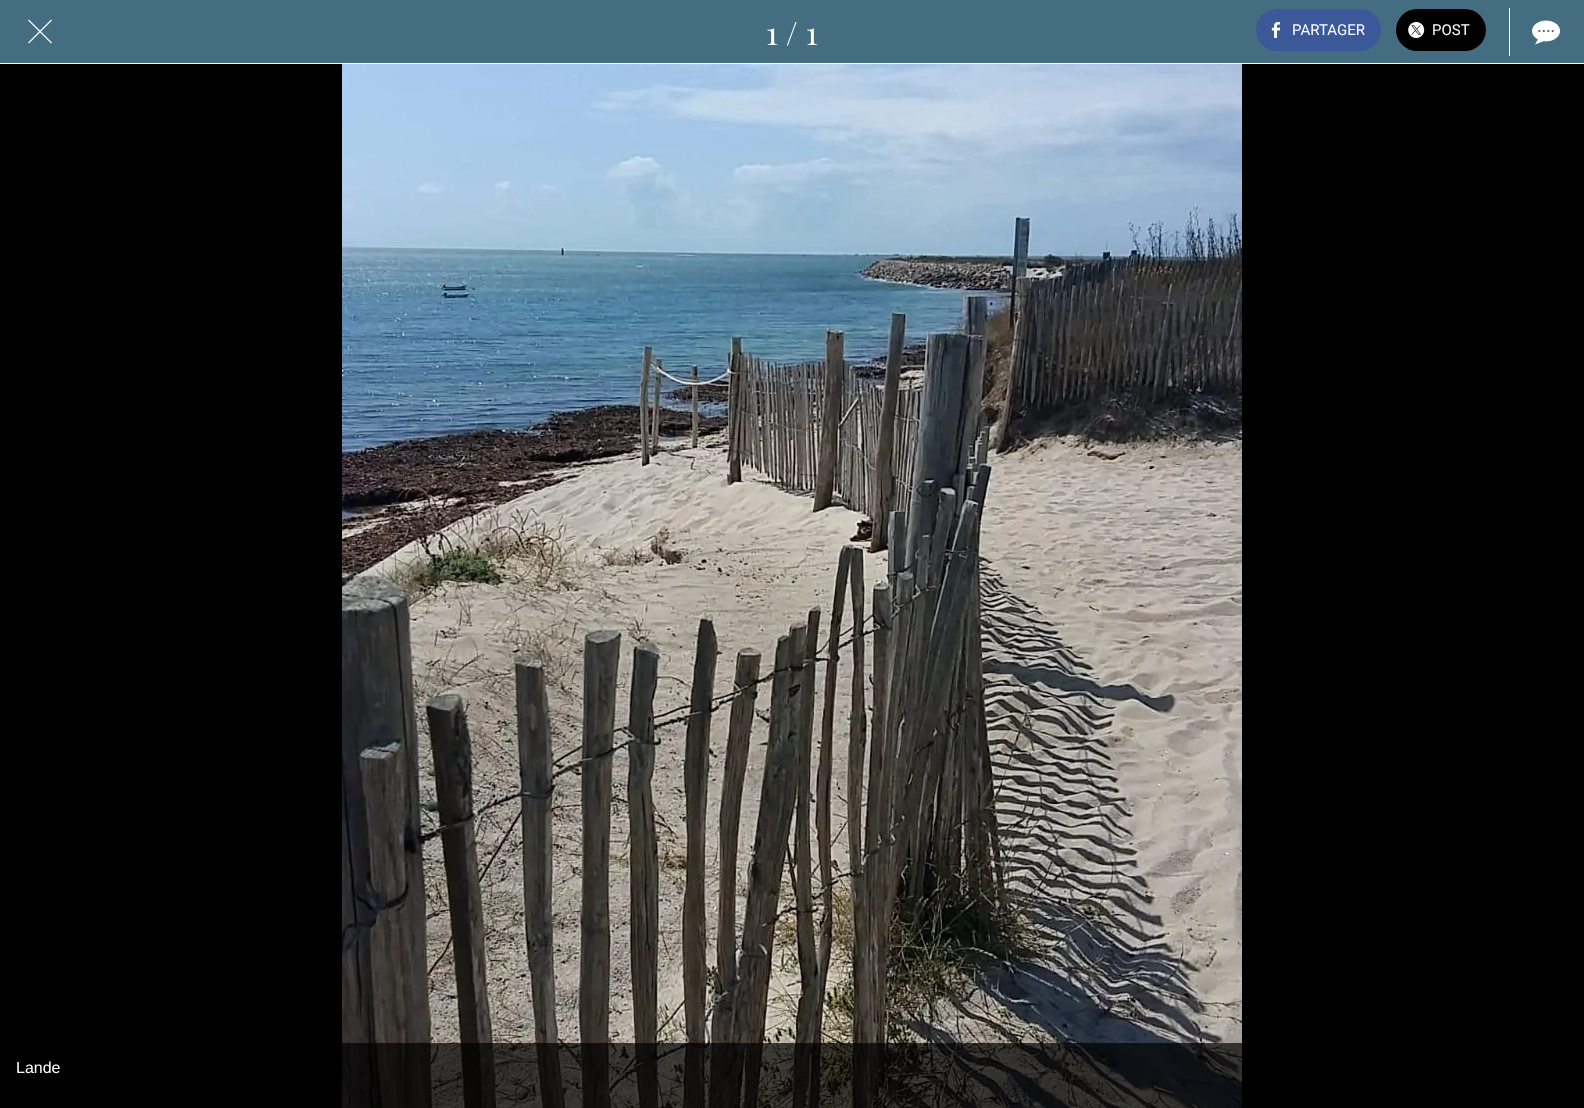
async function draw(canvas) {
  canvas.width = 1584
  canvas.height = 1108
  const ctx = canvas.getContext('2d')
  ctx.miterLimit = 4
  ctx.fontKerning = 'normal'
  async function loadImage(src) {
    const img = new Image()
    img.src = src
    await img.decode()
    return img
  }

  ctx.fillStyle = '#000'
  ctx.fillRect(0, 0, 1584, 1108)
  ctx.fillStyle = '#456d81'
  ctx.fillRect(0, 0, 1584, 63)
  ctx.fillStyle = '#fff'
  ctx.fillRect(0, 63, 1584, 1)
  ctx.drawImage(await loadImage('image0.png'), 28, 19, 24, 25)
  ctx.font = '32px Playfair Display'
  ctx.fillText('1 / 1', 766, 45)
  ctx.fillStyle = '#3b5999'
  ctx.beginPath()
  ctx.roundRect(1256, 9, 125, 42, 21)
  ctx.fill()
  ctx.drawImage(await loadImage('image1.png'), 1271, 22, 10, 16)
  ctx.font = '15px Roboto'
  ctx.fillStyle = '#fff'
  ctx.fillText('PARTAGER', 1292, 35)
  ctx.fillRect(1509, 8, 1, 48)
  ctx.fillStyle = '#000'
  ctx.beginPath()
  ctx.roundRect(1396, 9, 90, 42, 21)
  ctx.fill()
  ctx.drawImage(await loadImage('image2.png'), 1408, 22, 17, 16)
  ctx.fillStyle = '#fff'
  ctx.fillText('POST', 1432, 35)
  ctx.drawImage(await loadImage('image3.png'), 1532, 20, 29, 25)
  ctx.drawImage(await loadImage('image4.png'), 342, 64, 900, 1044)
  ctx.fillStyle = '#000000b3'
  ctx.fillRect(342, 1043, 900, 65)
  ctx.font = '16px Liberation Sans'
  ctx.fillStyle = '#fff'
  ctx.fillText('Lande', 16, 1073)
}

draw(document.querySelector('canvas'))
